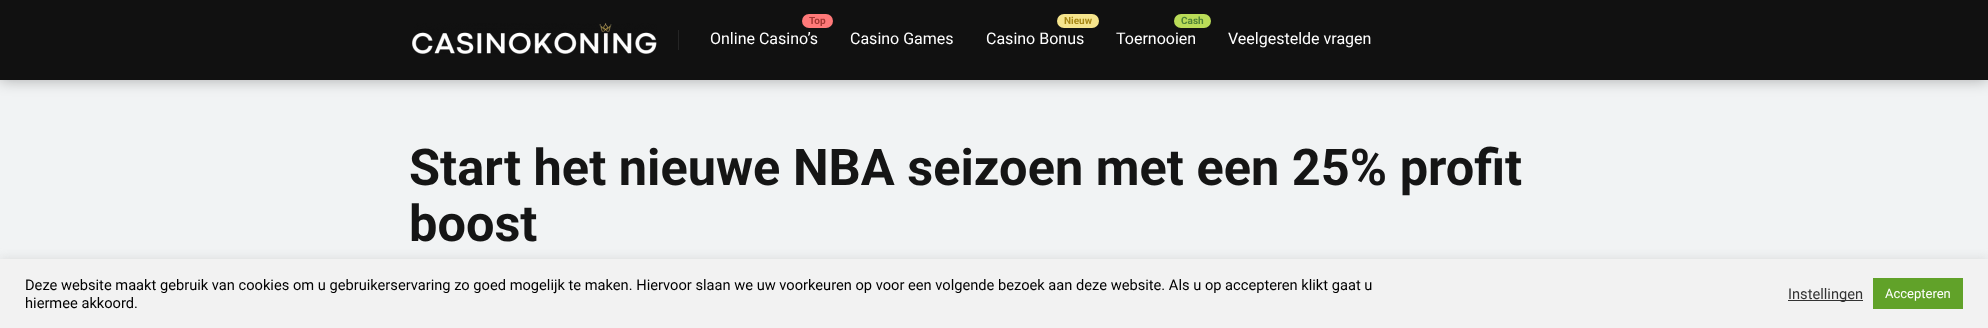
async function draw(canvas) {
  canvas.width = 1988
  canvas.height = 328
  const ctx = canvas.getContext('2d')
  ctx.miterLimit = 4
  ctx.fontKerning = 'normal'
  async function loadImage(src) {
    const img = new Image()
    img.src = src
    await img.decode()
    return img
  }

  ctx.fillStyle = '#f1f3f4'
  ctx.fillRect(0, 0, 1988, 328)
  ctx.fillStyle = '#0000004d'
  ctx.filter = 'blur(7.5px)'
  ctx.beginPath()
  ctx.rect(0, 0, 1988, 80)
  ctx.fill()
  ctx.filter = 'none'
  ctx.fillStyle = '#111'
  ctx.fillRect(0, 0, 1988, 80)
  ctx.drawImage(await loadImage('image0.png'), 412, 23, 245, 31)
  ctx.fillStyle = '#252525'
  ctx.fillRect(678, 30, 1, 20)
  ctx.fillStyle = '#ff7979'
  ctx.beginPath()
  ctx.roundRect(802, 14, 31, 14, 7)
  ctx.fill()
  ctx.font = 'bold 10px Roboto'
  ctx.fillStyle = '#a33632'
  ctx.fillText('Top', 809, 24)
  ctx.font = '16px Roboto'
  ctx.fillStyle = '#fff'
  ctx.fillText('Online Casino’s', 710, 44)
  ctx.fillText('Casino Games', 850, 44)
  ctx.fillStyle = '#f6e58d'
  ctx.beginPath()
  ctx.roundRect(1057, 14, 42, 14, 7)
  ctx.fill()
  ctx.font = 'bold 10px Roboto'
  ctx.fillStyle = '#a88817'
  ctx.fillText('Nieuw', 1064, 24)
  ctx.font = '16px Roboto'
  ctx.fillStyle = '#fff'
  ctx.fillText('Casino Bonus', 986, 44)
  ctx.fillStyle = '#badc58'
  ctx.beginPath()
  ctx.roundRect(1174, 14, 37, 14, 7)
  ctx.fill()
  ctx.font = 'bold 10px Roboto'
  ctx.fillStyle = '#4f8237'
  ctx.fillText('Cash', 1181, 24)
  ctx.font = '16px Roboto'
  ctx.fillStyle = '#fff'
  ctx.fillText('Toernooien', 1116, 44)
  ctx.fillText('Veelgestelde vragen', 1228, 44)
  ctx.font = 'bold 50.5px Roboto'
  ctx.fillStyle = '#151515'
  ctx.fillText('Start het nieuwe NBA seizoen met een 25% profit', 409, 185)
  ctx.fillText('boost', 409, 241)
  ctx.fillStyle = '#acabab4d'
  ctx.filter = 'blur(5px)'
  ctx.beginPath()
  ctx.rect(0, 258, 1988, 69)
  ctx.fill()
  ctx.filter = 'none'
  ctx.fillStyle = '#f2f2f2'
  ctx.fillRect(0, 259, 1988, 69)
  ctx.font = '14.67px Roboto'
  ctx.fillStyle = '#000'
  ctx.fillText('Deze website maakt gebruik van cookies om u gebruikerservaring zo goed mogelijk te maken. Hiervoor slaan we uw voorkeuren op voor een volgende bezoek aan deze website. Als u op accepteren klikt gaat u', 25, 290)
  ctx.fillText('hiermee akkoord.', 25, 308)
  ctx.fillStyle = '#333'
  ctx.fillRect(1788, 300, 75, 1)
  ctx.fillText('Instellingen', 1788, 299)
  ctx.fillStyle = '#61a229'
  ctx.fillRect(1873, 278, 90, 31)
  ctx.font = '13px Roboto'
  ctx.fillStyle = '#fff'
  ctx.fillText('Accepteren', 1885, 298)
}

draw(document.querySelector('canvas'))
